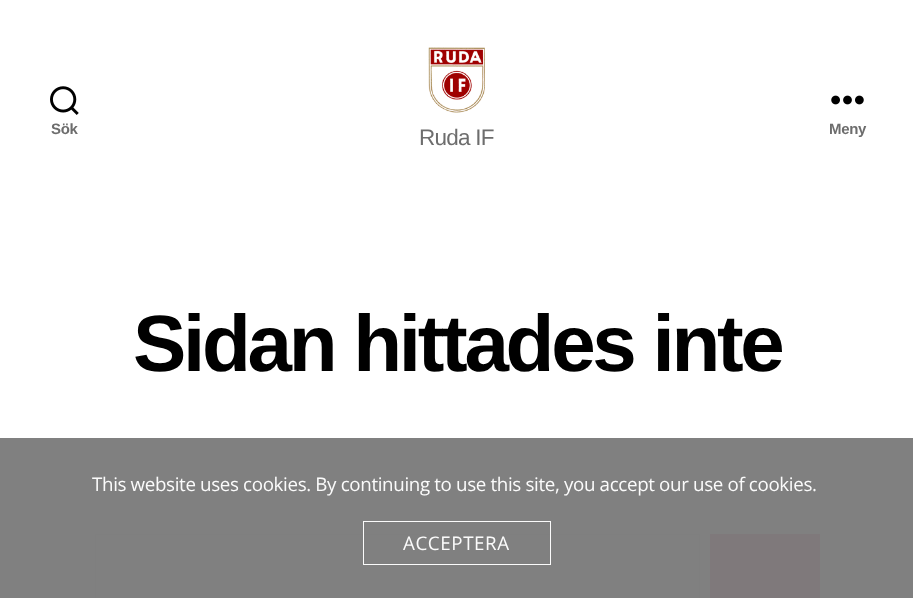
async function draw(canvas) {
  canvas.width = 913
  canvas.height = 598
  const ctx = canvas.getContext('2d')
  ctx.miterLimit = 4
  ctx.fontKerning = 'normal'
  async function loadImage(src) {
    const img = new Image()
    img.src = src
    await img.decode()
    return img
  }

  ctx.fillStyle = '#fff'
  ctx.fillRect(0, 0, 913, 598)
  ctx.drawImage(await loadImage('image0.png'), 50, 86, 29, 29)
  ctx.letterSpacing = '-0.35px'
  ctx.font = 'bold 15px Liberation Sans'
  ctx.fillStyle = '#6d6d6d'
  ctx.fillText('Sök', 51, 134)
  ctx.drawImage(await loadImage('image1.png'), 428, 47, 57, 66)
  ctx.letterSpacing = '-0.75px'
  ctx.font = '22.5px Liberation Sans'
  ctx.fillText('Ruda IF', 419, 145)
  ctx.drawImage(await loadImage('image2.png'), 831, 95, 33, 10)
  ctx.letterSpacing = '-0.35px'
  ctx.font = 'bold 15px Liberation Sans'
  ctx.fillText('Meny', 829, 134)
  ctx.letterSpacing = '-3.3px'
  ctx.font = 'bold 80px Liberation Sans'
  ctx.fillStyle = '#000'
  ctx.fillText('Sidan hittades inte', 133, 371)
  ctx.strokeStyle = '#dbdbdb'
  ctx.strokeRect(95.5, 534.5, 604, 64)
  ctx.fillStyle = '#e22658'
  ctx.fillRect(710, 534, 110, 64)
  ctx.fillStyle = '#7c7c7cf7'
  ctx.fillRect(0, 438, 913, 160)
  ctx.letterSpacing = '-0.35px'
  ctx.font = '18.75px Open Sans'
  ctx.fillStyle = '#fbfbfb'
  ctx.fillText('This website uses cookies. By continuing to use this site, you accept our use of cookies.', 92, 491)
  ctx.strokeStyle = '#fbfbfb'
  ctx.strokeRect(363.5, 521.5, 187, 43)
  ctx.letterSpacing = '0.6px'
  ctx.fillText('ACCEPTERA', 403, 550)
}

draw(document.querySelector('canvas'))
